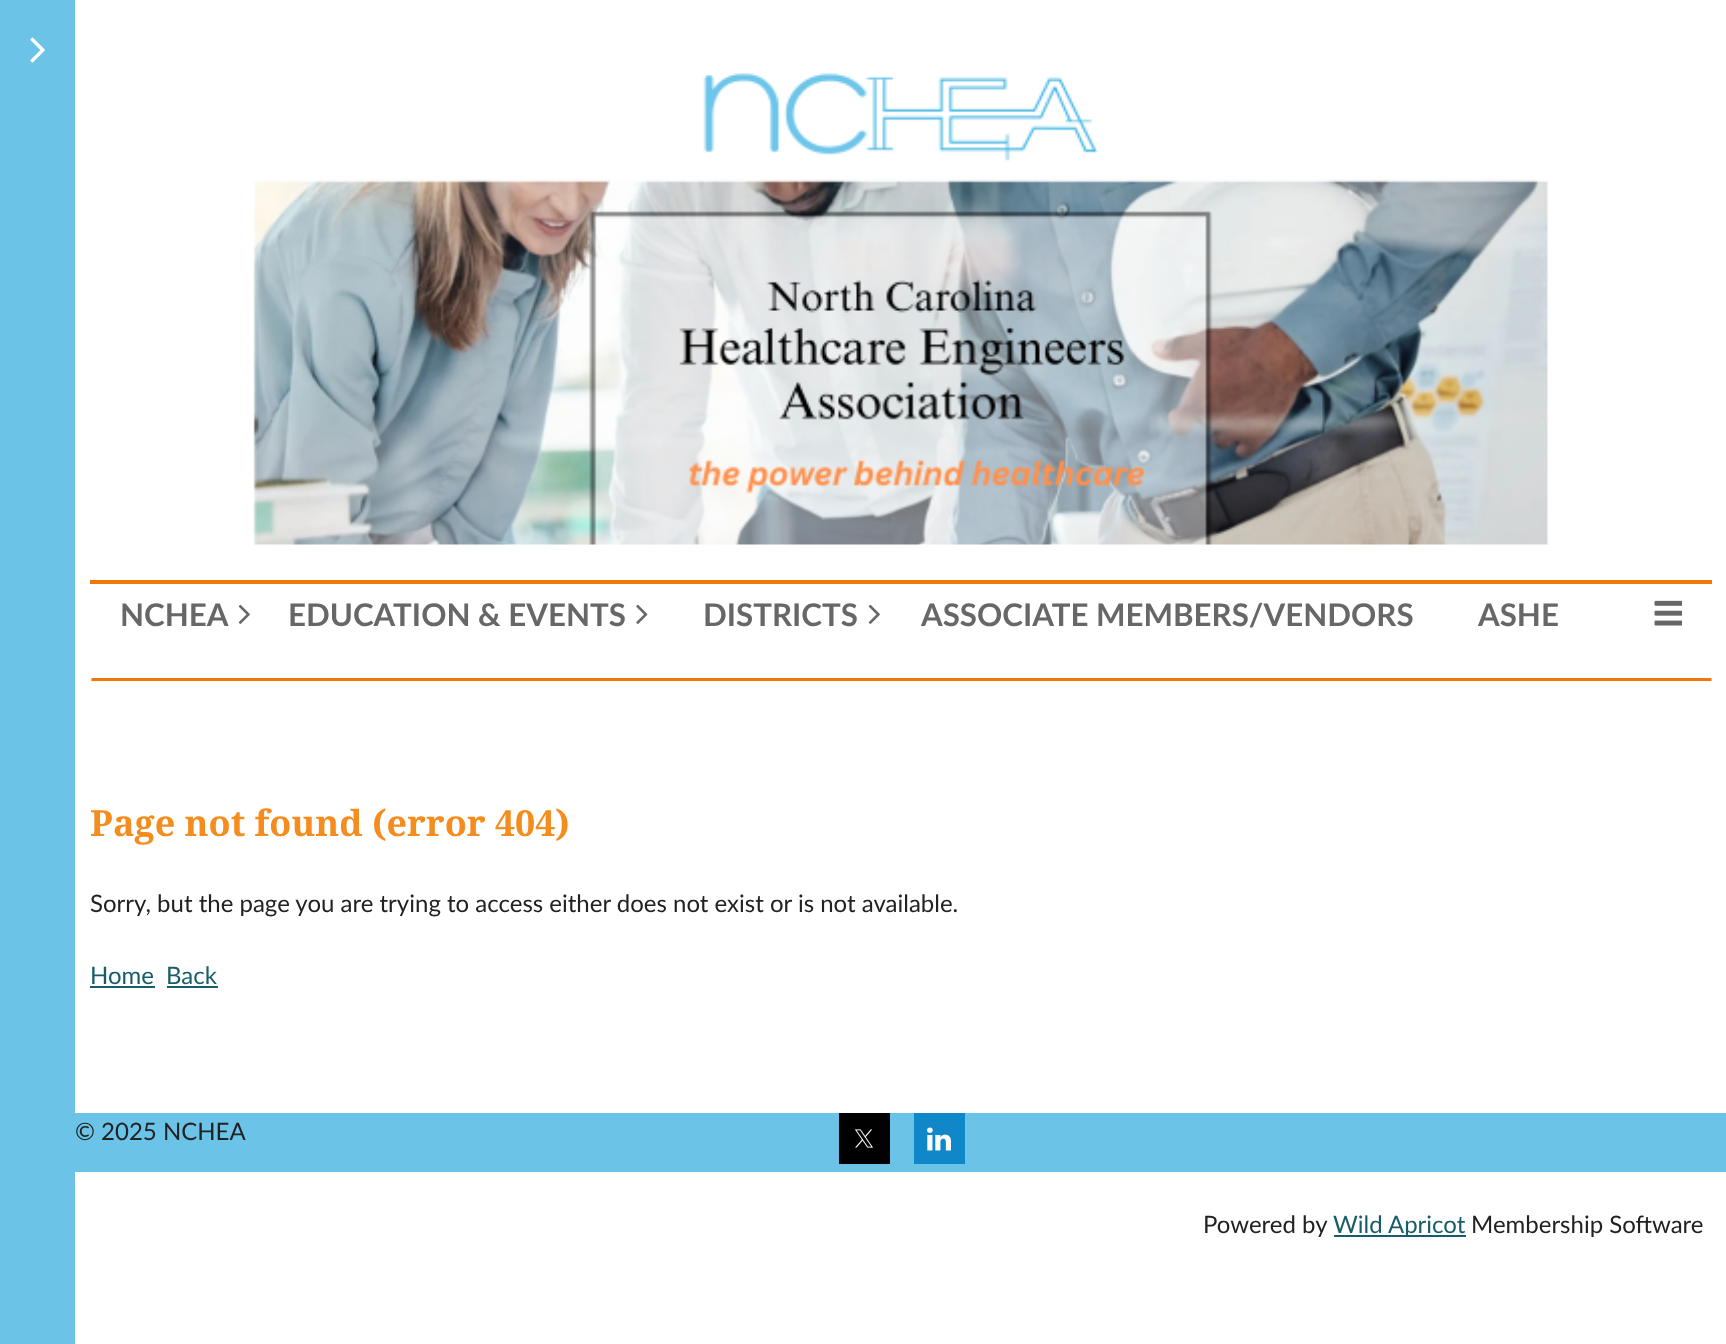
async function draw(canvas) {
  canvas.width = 1726
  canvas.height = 1344
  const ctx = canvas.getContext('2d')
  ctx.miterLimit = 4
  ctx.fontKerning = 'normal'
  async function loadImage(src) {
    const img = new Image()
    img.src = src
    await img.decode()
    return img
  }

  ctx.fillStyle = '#fff'
  ctx.fillRect(0, 0, 1726, 1344)
  ctx.fillStyle = '#6bc4e7'
  ctx.fillRect(0, 0, 75, 1344)
  ctx.drawImage(await loadImage('image0.png'), 30, 37, 15, 26)
  ctx.drawImage(await loadImage('image1.png'), 253, 73, 1295, 472)
  ctx.fillStyle = '#ef7809'
  ctx.fillRect(90, 580, 1622, 4)
  ctx.font = 'bold 31.25px Lato'
  ctx.fillStyle = '#676767'
  ctx.fillText('NCHEA', 120, 626)
  ctx.drawImage(await loadImage('image2.png'), 238, 604, 12, 20)
  ctx.fillText('EDUCATION & EVENTS', 288, 626)
  ctx.drawImage(await loadImage('image3.png'), 636, 604, 12, 20)
  ctx.fillText('DISTRICTS', 703, 626)
  ctx.drawImage(await loadImage('image2.png'), 868, 604, 12, 20)
  ctx.fillText('ASSOCIATE MEMBERS/VENDORS', 921, 626)
  ctx.fillText('ASHE', 1478, 626)
  ctx.drawImage(await loadImage('image4.png'), 1654, 600, 28, 26)
  ctx.drawImage(await loadImage('image5.png'), 90, 678, 1622, 3)
  ctx.font = 'bold 36px Droid Serif'
  ctx.fillStyle = '#f48d1d'
  ctx.fillText('Page not found (error 404)', 90, 836)
  ctx.font = '24px Lato'
  ctx.fillStyle = '#222'
  ctx.fillText('Sorry, but the page you are trying to access either does not exist or is not available.', 90, 912)
  ctx.fillStyle = '#175d68'
  ctx.fillText('Home', 90, 984)
  ctx.fillRect(90, 986, 65, 2)
  ctx.fillText('Back', 166, 984)
  ctx.fillRect(167, 986, 51, 2)
  ctx.fillStyle = '#6bc4e7'
  ctx.fillRect(75, 1113, 1651, 59)
  ctx.fillStyle = '#222'
  ctx.fillText('© 2025 NCHEA', 75, 1140)
  ctx.fillStyle = '#000'
  ctx.fillRect(839, 1113, 51, 51)
  ctx.drawImage(await loadImage('image6.png'), 855, 1129, 18, 19)
  ctx.fillStyle = '#1087c9'
  ctx.fillRect(914, 1113, 51, 51)
  ctx.drawImage(await loadImage('image7.png'), 927, 1127, 24, 24)
  ctx.fillStyle = '#222'
  ctx.fillText('Powered by', 1203, 1233)
  ctx.fillStyle = '#175d68'
  ctx.fillRect(1334, 1235, 132, 2)
  ctx.fillText('Wild Apricot', 1333, 1233)
  ctx.fillStyle = '#222'
  ctx.fillText('Membership Software', 1471, 1233)
}

draw(document.querySelector('canvas'))
